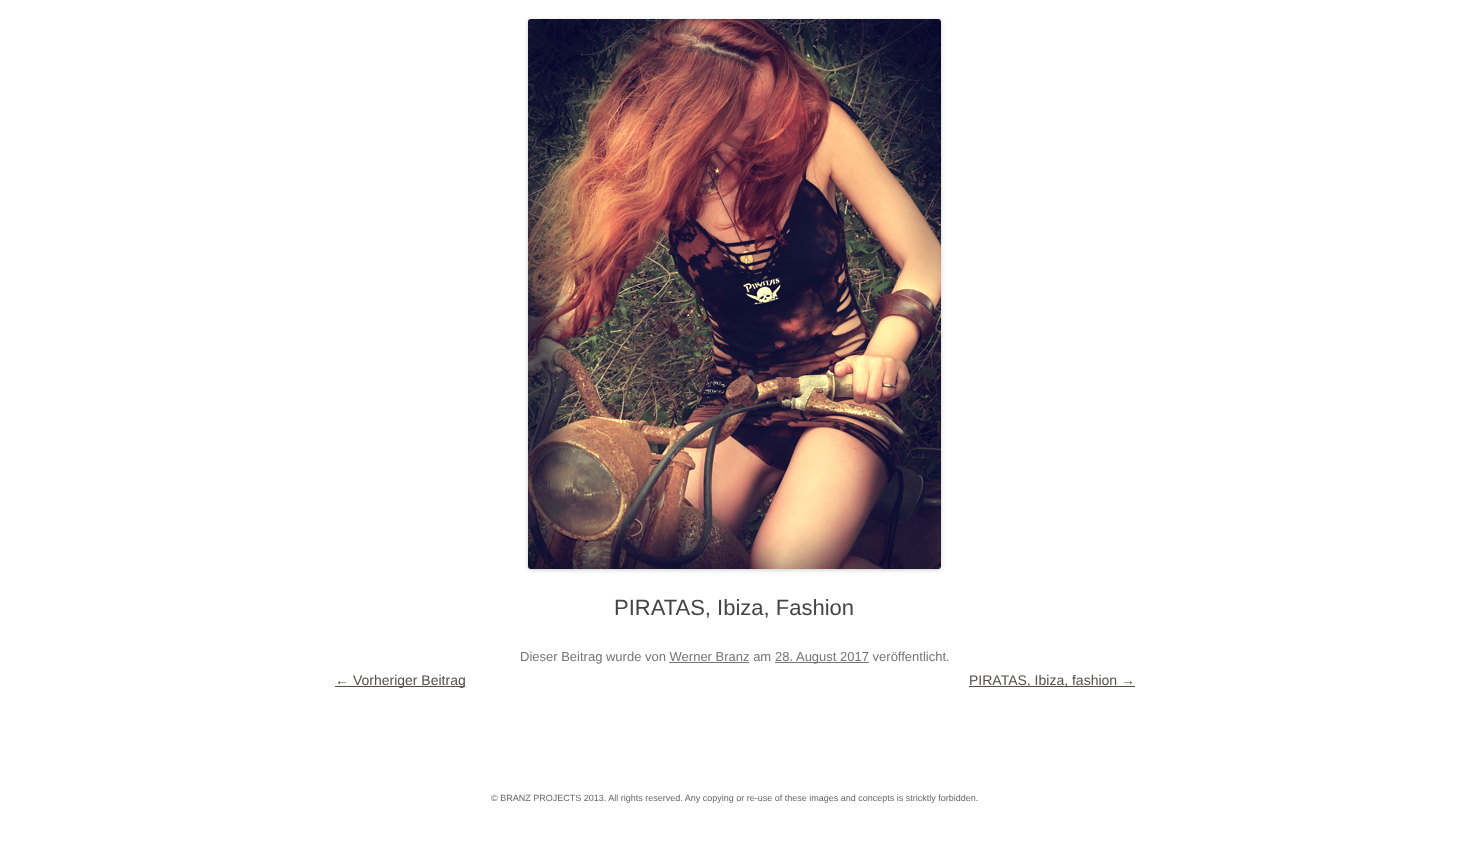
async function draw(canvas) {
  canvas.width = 1469
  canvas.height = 841
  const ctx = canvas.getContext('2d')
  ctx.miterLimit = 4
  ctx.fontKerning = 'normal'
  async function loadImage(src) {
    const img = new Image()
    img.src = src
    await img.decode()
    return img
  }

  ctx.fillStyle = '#fff'
  ctx.fillRect(0, 0, 1469, 841)
  ctx.fillStyle = '#00000033'
  ctx.filter = 'blur(2px)'
  ctx.beginPath()
  ctx.roundRect(528, 20, 413, 550, 3)
  ctx.fill()
  ctx.filter = 'none'
  ctx.drawImage(await loadImage('image0.png'), 528, 19, 413, 550)
  ctx.font = '22px Liberation Sans'
  ctx.fillStyle = '#444'
  ctx.fillText('PIRATAS, Ibiza, Fashion', 614, 615)
  ctx.font = '13px Liberation Sans'
  ctx.fillStyle = '#757575'
  ctx.fillText('Dieser Beitrag wurde von Werner Branz am', 520, 661)
  ctx.fillRect(775, 662, 94, 1)
  ctx.fillText('28. August 2017 veröffentlicht.', 775, 661)
  ctx.fillRect(669, 662, 80, 1)
  ctx.fillStyle = '#584d4d'
  ctx.fillRect(335, 686, 130, 1)
  ctx.font = '14px Liberation Sans'
  ctx.fillText('← Vorheriger Beitrag', 335, 685)
  ctx.fillRect(969, 686, 166, 1)
  ctx.fillText('PIRATAS, Ibiza, fashion →', 969, 685)
  ctx.font = '9px Liberation Sans'
  ctx.fillStyle = '#666'
  ctx.fillText('© BRANZ PROJECTS 2013. All rights reserved. Any copying or re-use of these images and concepts is stricktly forbidden.', 491, 801)
}

draw(document.querySelector('canvas'))
